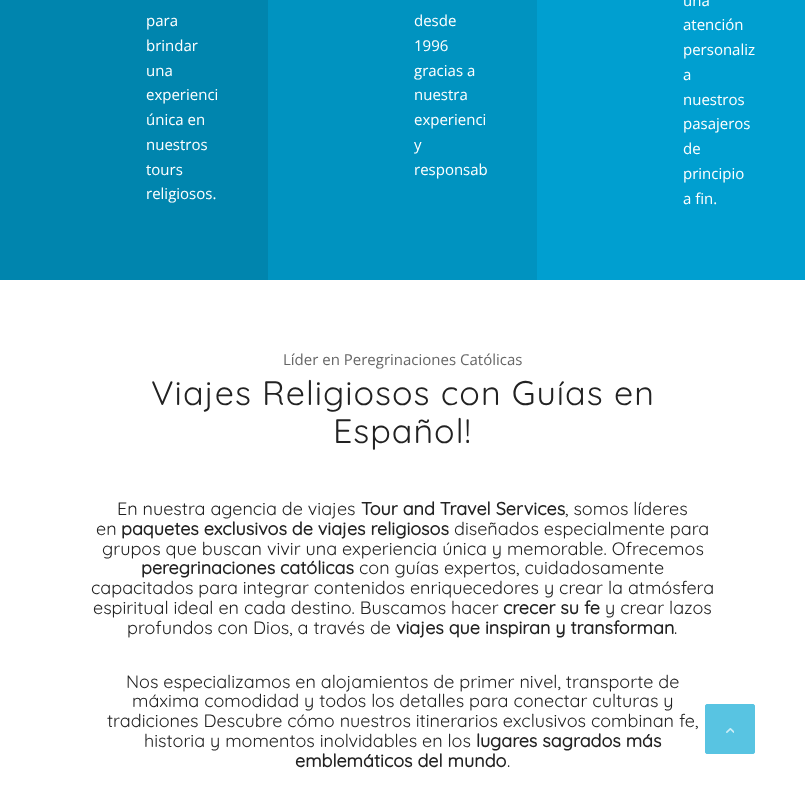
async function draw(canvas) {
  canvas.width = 805
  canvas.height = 804
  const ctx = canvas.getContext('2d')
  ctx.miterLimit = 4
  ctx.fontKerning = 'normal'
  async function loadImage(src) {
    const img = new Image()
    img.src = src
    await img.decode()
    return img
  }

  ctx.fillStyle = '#fff'
  ctx.fillRect(0, 0, 805, 804)
  ctx.fillStyle = '#0085ae'
  ctx.fillRect(0, 0, 268, 280)
  ctx.font = '15px Open Sans'
  ctx.fillStyle = '#fff'
  ctx.fillText('para', 146, 26)
  ctx.fillText('brindar', 146, 51)
  ctx.fillText('una', 146, 76)
  ctx.fillText('experienci', 146, 100)
  ctx.fillText('única en', 146, 125)
  ctx.fillText('nuestros', 146, 150)
  ctx.fillText('tours', 146, 175)
  ctx.fillText('religiosos.', 146, 199)
  ctx.fillStyle = '#0093c0'
  ctx.fillRect(268, 0, 269, 280)
  ctx.fillStyle = '#fff'
  ctx.fillText('desde', 414, 26)
  ctx.fillText('1996', 414, 51)
  ctx.fillText('gracias a', 414, 76)
  ctx.fillText('nuestra', 414, 100)
  ctx.fillText('experienci', 414, 125)
  ctx.fillText('y', 414, 150)
  ctx.save()
  ctx.beginPath()
  ctx.rect(414, 0, 73, 181)
  ctx.clip()
  ctx.fillText('responsab', 414, 175)
  ctx.restore()
  ctx.fillStyle = '#009fd0'
  ctx.fillRect(537, 0, 268, 280)
  ctx.fillStyle = '#fff'
  ctx.fillText('una', 683, 6)
  ctx.fillText('atención', 683, 30)
  ctx.fillText('personaliz', 683, 55)
  ctx.fillText('a', 683, 80)
  ctx.fillText('nuestros', 683, 105)
  ctx.fillText('pasajeros', 683, 129)
  ctx.fillText('de', 683, 154)
  ctx.fillText('principio', 683, 179)
  ctx.fillText('a fin.', 683, 204)
  ctx.fillStyle = '#666'
  ctx.fillText('Líder en Peregrinaciones Católicas', 283, 365)
  ctx.letterSpacing = '1px'
  ctx.font = '300 34px Quicksand'
  ctx.fillStyle = '#222'
  ctx.fillText('Viajes Religiosos con Guías en', 151, 405)
  ctx.fillText('Español!', 333, 443)
  ctx.letterSpacing = '0px'
  ctx.font = '300 18px Quicksand'
  ctx.fillText('En nuestra agencia de viajes', 117, 515)
  ctx.font = 'bold 18px Quicksand'
  ctx.fillText('Tour and Travel Services', 361, 515)
  ctx.font = '300 18px Quicksand'
  ctx.fillText(', somos líderes', 565, 515)
  ctx.fillText('en', 96, 535)
  ctx.font = 'bold 18px Quicksand'
  ctx.fillText('paquetes exclusivos de viajes religiosos', 121, 535)
  ctx.font = '300 18px Quicksand'
  ctx.fillText('diseñados especialmente para', 454, 535)
  ctx.fillText('grupos que buscan vivir una experiencia única y memorable. Ofrecemos', 102, 555)
  ctx.font = 'bold 18px Quicksand'
  ctx.fillText('peregrinaciones católicas', 141, 574)
  ctx.font = '300 18px Quicksand'
  ctx.fillText('con guías expertos, cuidadosamente', 359, 574)
  ctx.fillText('capacitados para integrar contenidos enriquecedores y crear la atmósfera', 91, 594)
  ctx.fillText('espiritual ideal en cada destino. Buscamos hacer', 93, 614)
  ctx.font = 'bold 18px Quicksand'
  ctx.fillText('crecer su fe', 503, 614)
  ctx.font = '300 18px Quicksand'
  ctx.fillText('y crear lazos', 605, 614)
  ctx.fillText('profundos con Dios, a través de', 127, 634)
  ctx.font = 'bold 18px Quicksand'
  ctx.fillText('viajes que inspiran y transforman', 396, 634)
  ctx.font = '300 18px Quicksand'
  ctx.fillText('.', 674, 634)
  ctx.fillText('Nos especializamos en alojamientos de primer nivel, transporte de', 126, 688)
  ctx.fillText('máxima comodidad y todos los detalles para conectar culturas y', 132, 707)
  ctx.fillText('tradiciones Descubre cómo nuestros itinerarios exclusivos combinan fe,', 107, 727)
  ctx.fillText('historia y momentos inolvidables en los', 144, 747)
  ctx.font = 'bold 18px Quicksand'
  ctx.fillText('lugares sagrados más', 476, 747)
  ctx.fillText('emblemáticos del mundo', 295, 767)
  ctx.font = '300 18px Quicksand'
  ctx.fillText('.', 507, 767)
  ctx.fillStyle = '#58c4e2'
  ctx.beginPath()
  ctx.roundRect(705.5, 704.5, 49, 49, 1.5)
  ctx.fill()
  ctx.strokeStyle = '#58c4e2'
  ctx.stroke()
  ctx.drawImage(await loadImage('image0.png'), 726, 728, 8, 5)
}

draw(document.querySelector('canvas'))
